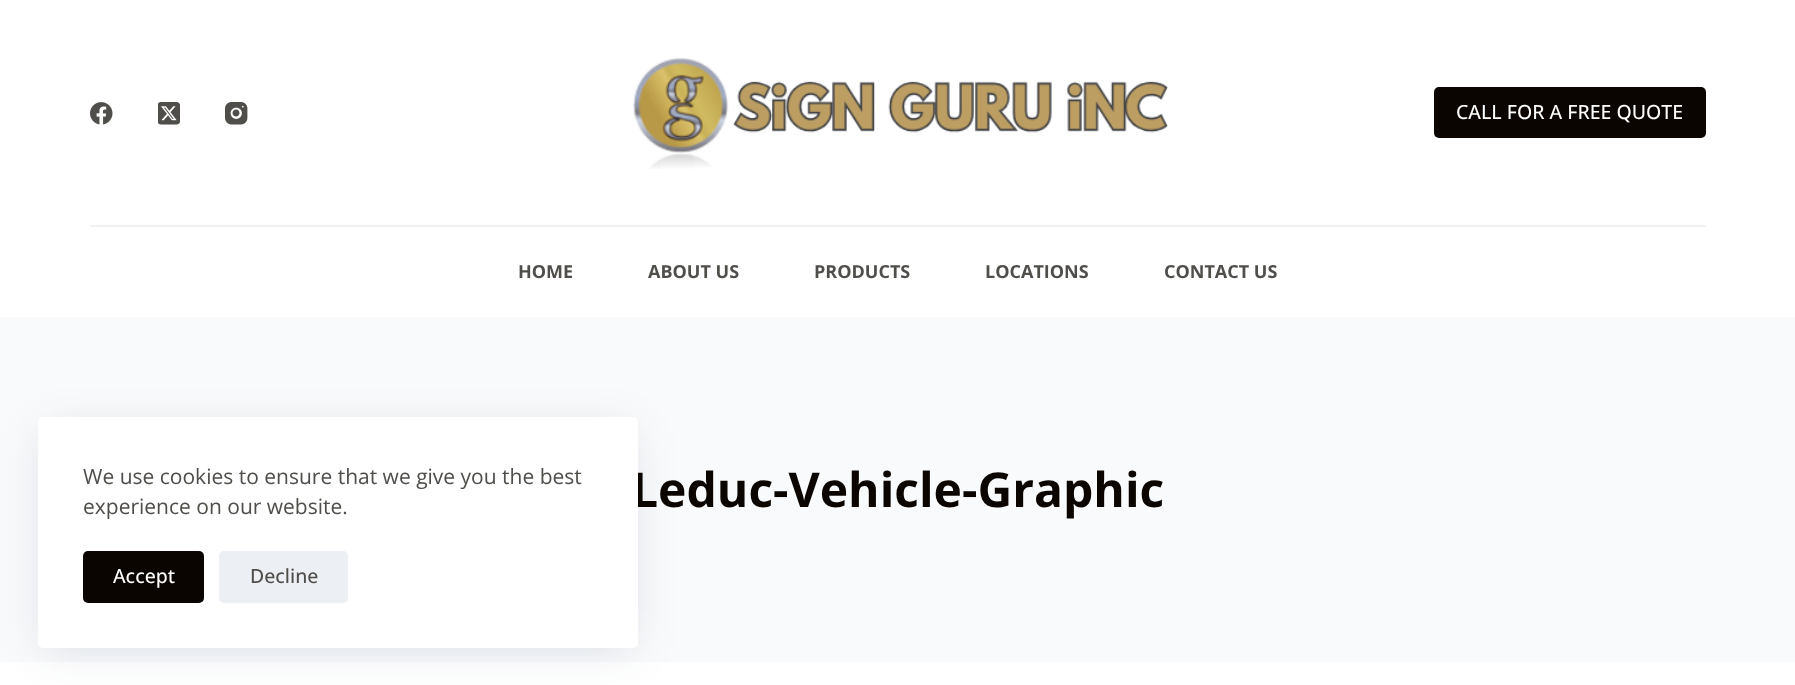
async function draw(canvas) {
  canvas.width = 1795
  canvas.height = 685
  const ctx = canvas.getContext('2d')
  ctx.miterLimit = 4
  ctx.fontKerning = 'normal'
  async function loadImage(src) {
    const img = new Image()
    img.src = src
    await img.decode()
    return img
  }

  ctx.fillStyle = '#fff'
  ctx.fillRect(0, 0, 1795, 685)
  ctx.fillStyle = '#f9fafb'
  ctx.fillRect(0, 317, 1795, 345)
  ctx.fillStyle = '#22386526'
  ctx.filter = 'blur(22.5px)'
  ctx.beginPath()
  ctx.rect(45, 432, 585, 216)
  ctx.fill()
  ctx.filter = 'none'
  ctx.font = 'bold 48px Open Sans'
  ctx.fillStyle = '#0a0500'
  ctx.fillText('Leduc-Vehicle-Graphic', 631, 507)
  ctx.fillStyle = '#fff'
  ctx.beginPath()
  ctx.roundRect(38, 417, 600, 231, 5)
  ctx.fill()
  ctx.font = '21px Open Sans'
  ctx.fillStyle = '#504e4a'
  ctx.fillText('We use cookies to ensure that we give you the best', 83, 484)
  ctx.fillText('experience on our website.', 83, 514)
  ctx.fillStyle = '#0a0500'
  ctx.beginPath()
  ctx.roundRect(83, 551, 121, 52, 5)
  ctx.fill()
  ctx.font = '500 19.5px Open Sans'
  ctx.fillStyle = '#fff'
  ctx.fillText('Accept', 113, 583)
  ctx.fillStyle = '#eceff3'
  ctx.beginPath()
  ctx.roundRect(219, 551, 129, 52, 5)
  ctx.fill()
  ctx.fillStyle = '#504e4a'
  ctx.fillText('Decline', 250, 583)
  ctx.drawImage(await loadImage('image0.png'), 90, 102, 23, 23)
  ctx.drawImage(await loadImage('image1.png'), 158, 102, 22, 23)
  ctx.drawImage(await loadImage('image2.png'), 225, 102, 23, 23)
  ctx.drawImage(await loadImage('image3.png'), 633, 57, 536, 112)
  ctx.fillStyle = '#0a0500'
  ctx.beginPath()
  ctx.roundRect(1434, 87, 272, 51, 5)
  ctx.fill()
  ctx.fillStyle = '#fff'
  ctx.fillText('CALL FOR A FREE QUOTE', 1456, 119)
  ctx.fillStyle = '#f2f1f1'
  ctx.fillRect(90, 225, 1616, 2)
  ctx.font = 'bold 18px Open Sans'
  ctx.fillStyle = '#504e4a'
  ctx.fillText('HOME', 518, 278)
  ctx.fillText('ABOUT US', 648, 278)
  ctx.fillText('PRODUCTS', 814, 278)
  ctx.fillText('LOCATIONS', 985, 278)
  ctx.fillText('CONTACT US', 1164, 278)
}

draw(document.querySelector('canvas'))
